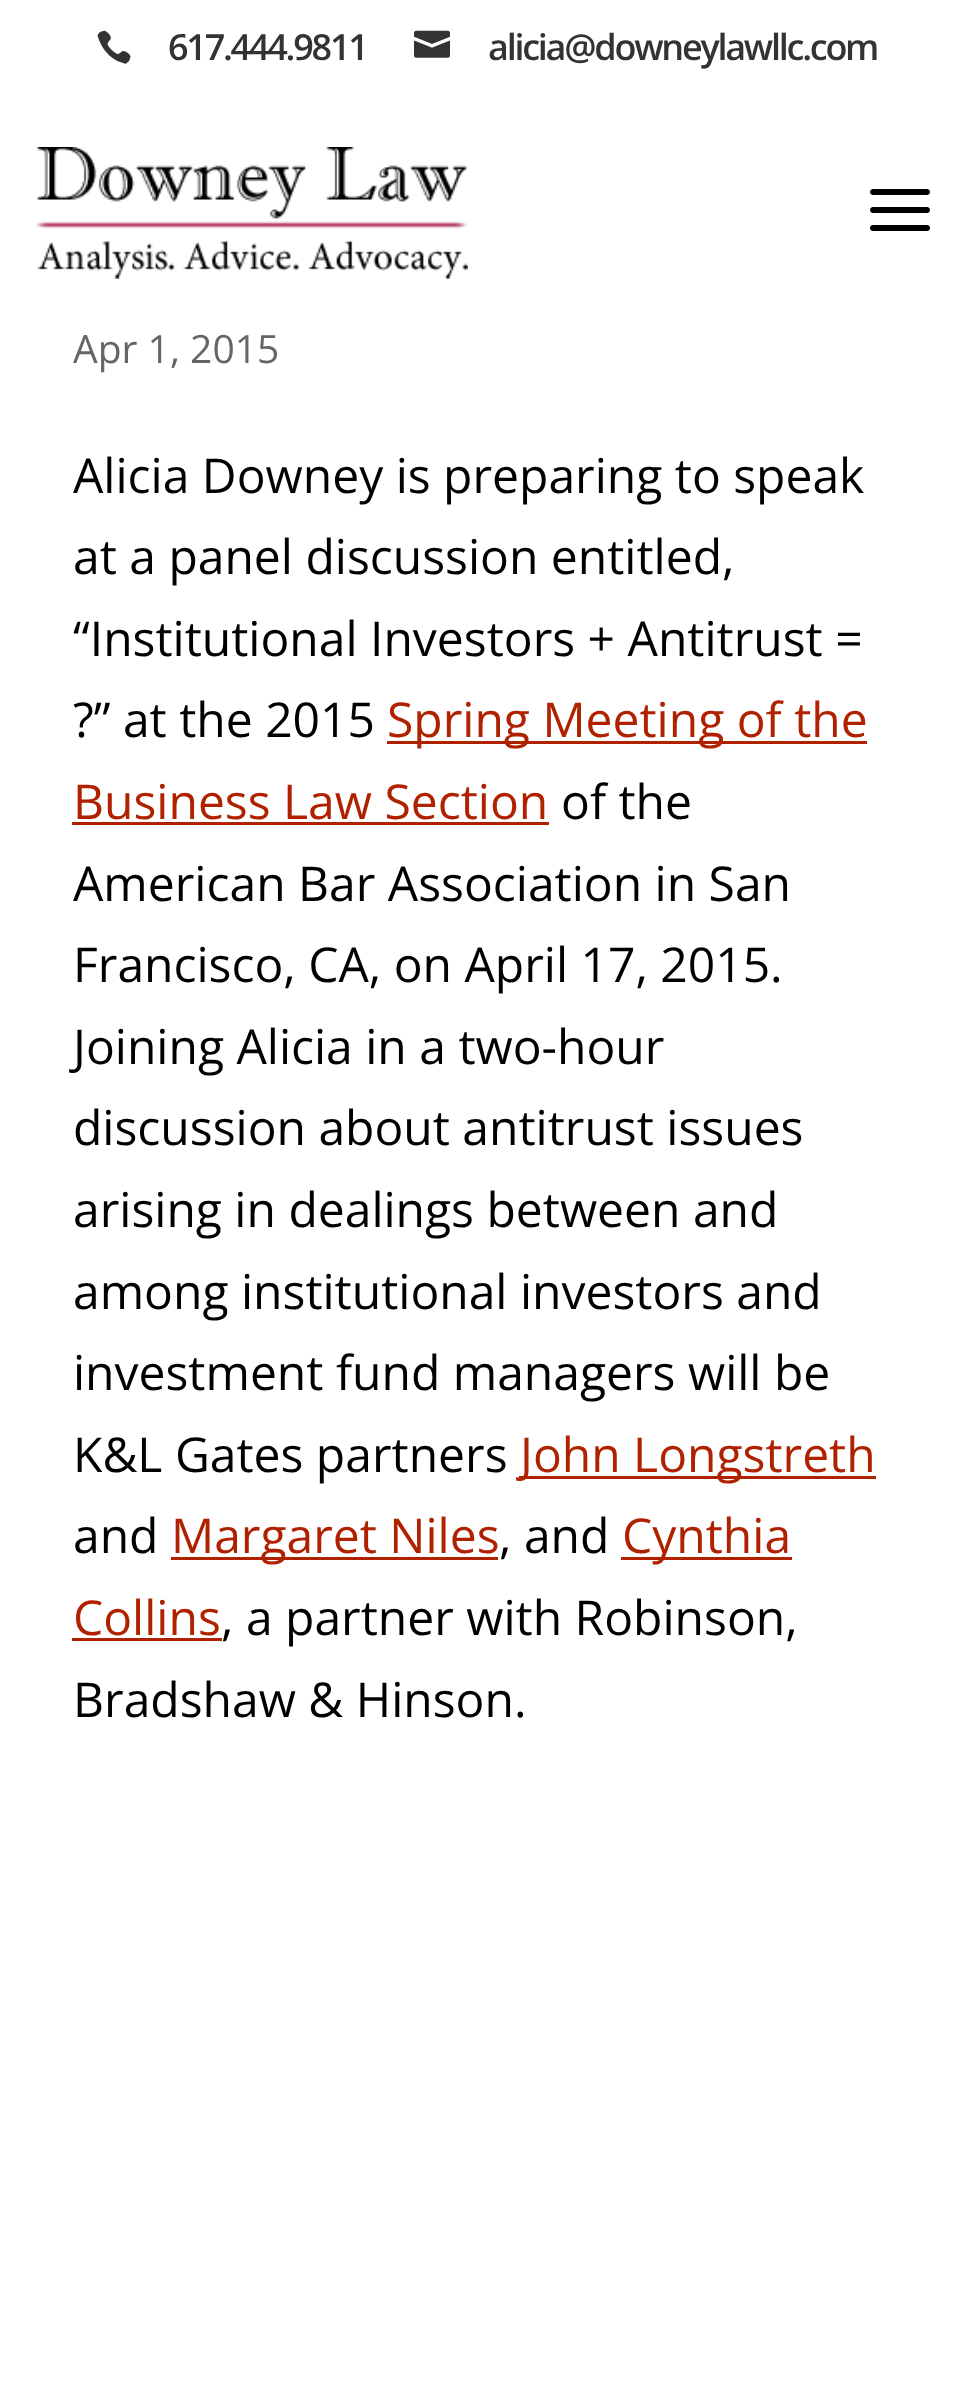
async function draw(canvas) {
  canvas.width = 972
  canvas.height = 2408
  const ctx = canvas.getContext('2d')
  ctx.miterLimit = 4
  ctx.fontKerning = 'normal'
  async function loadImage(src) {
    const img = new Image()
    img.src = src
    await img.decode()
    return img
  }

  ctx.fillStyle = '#fff'
  ctx.fillRect(0, 0, 972, 2408)
  ctx.drawImage(await loadImage('image0.png'), 97, 30, 34, 34)
  ctx.letterSpacing = '-2.25px'
  ctx.font = '600 36px Open Sans'
  ctx.fillStyle = '#333'
  ctx.fillText('617.444.9811', 168, 60)
  ctx.drawImage(await loadImage('image1.png'), 414, 30, 36, 28)
  ctx.fillText('alicia@downeylawllc.com', 488, 60)
  ctx.drawImage(await loadImage('image2.png'), 36, 147, 432, 132)
  ctx.drawImage(await loadImage('image3.png'), 870, 189, 60, 42)
  ctx.letterSpacing = '0px'
  ctx.font = '39px Open Sans'
  ctx.fillStyle = '#666'
  ctx.fillText('Apr 1, 2015', 73, 363)
  ctx.font = '48px Open Sans'
  ctx.fillStyle = '#000'
  ctx.fillText('Alicia Downey is preparing to speak', 73, 493)
  ctx.fillText('at a panel discussion entitled,', 73, 574)
  ctx.fillText('“Institutional Investors + Antitrust =', 73, 656)
  ctx.fillText('?” at the 2015', 73, 737)
  ctx.fillStyle = '#b02100'
  ctx.fillRect(387, 741, 480, 3)
  ctx.fillText('Spring Meeting of the', 387, 737)
  ctx.fillText('Business Law Section', 73, 819)
  ctx.fillRect(72, 822, 477, 3)
  ctx.fillStyle = '#000'
  ctx.fillText('of the', 561, 819)
  ctx.fillText('American Bar Association in San', 73, 901)
  ctx.fillText('Francisco, CA, on April 17, 2015.', 73, 982)
  ctx.fillText('Joining Alicia in a two-hour', 73, 1064)
  ctx.fillText('discussion about antitrust issues', 73, 1145)
  ctx.fillText('arising in dealings between and', 73, 1227)
  ctx.fillText('among institutional investors and', 73, 1309)
  ctx.fillText('investment fund managers will be', 73, 1390)
  ctx.fillText('K&L Gates partners', 73, 1472)
  ctx.fillStyle = '#b02100'
  ctx.fillRect(519, 1476, 357, 3)
  ctx.fillText('John Longstreth', 520, 1472)
  ctx.fillStyle = '#000'
  ctx.fillText('and', 73, 1553)
  ctx.fillStyle = '#b02100'
  ctx.fillRect(171, 1557, 327, 3)
  ctx.fillText('Margaret Niles', 171, 1553)
  ctx.fillStyle = '#000'
  ctx.fillText(', and', 499, 1553)
  ctx.fillStyle = '#b02100'
  ctx.fillRect(621, 1557, 171, 3)
  ctx.fillText('Cynthia', 622, 1553)
  ctx.fillText('Collins', 73, 1635)
  ctx.fillRect(72, 1638, 150, 3)
  ctx.fillStyle = '#000'
  ctx.fillText(', a partner with Robinson,', 221, 1635)
  ctx.fillText('Bradshaw & Hinson.', 73, 1717)
}

draw(document.querySelector('canvas'))
